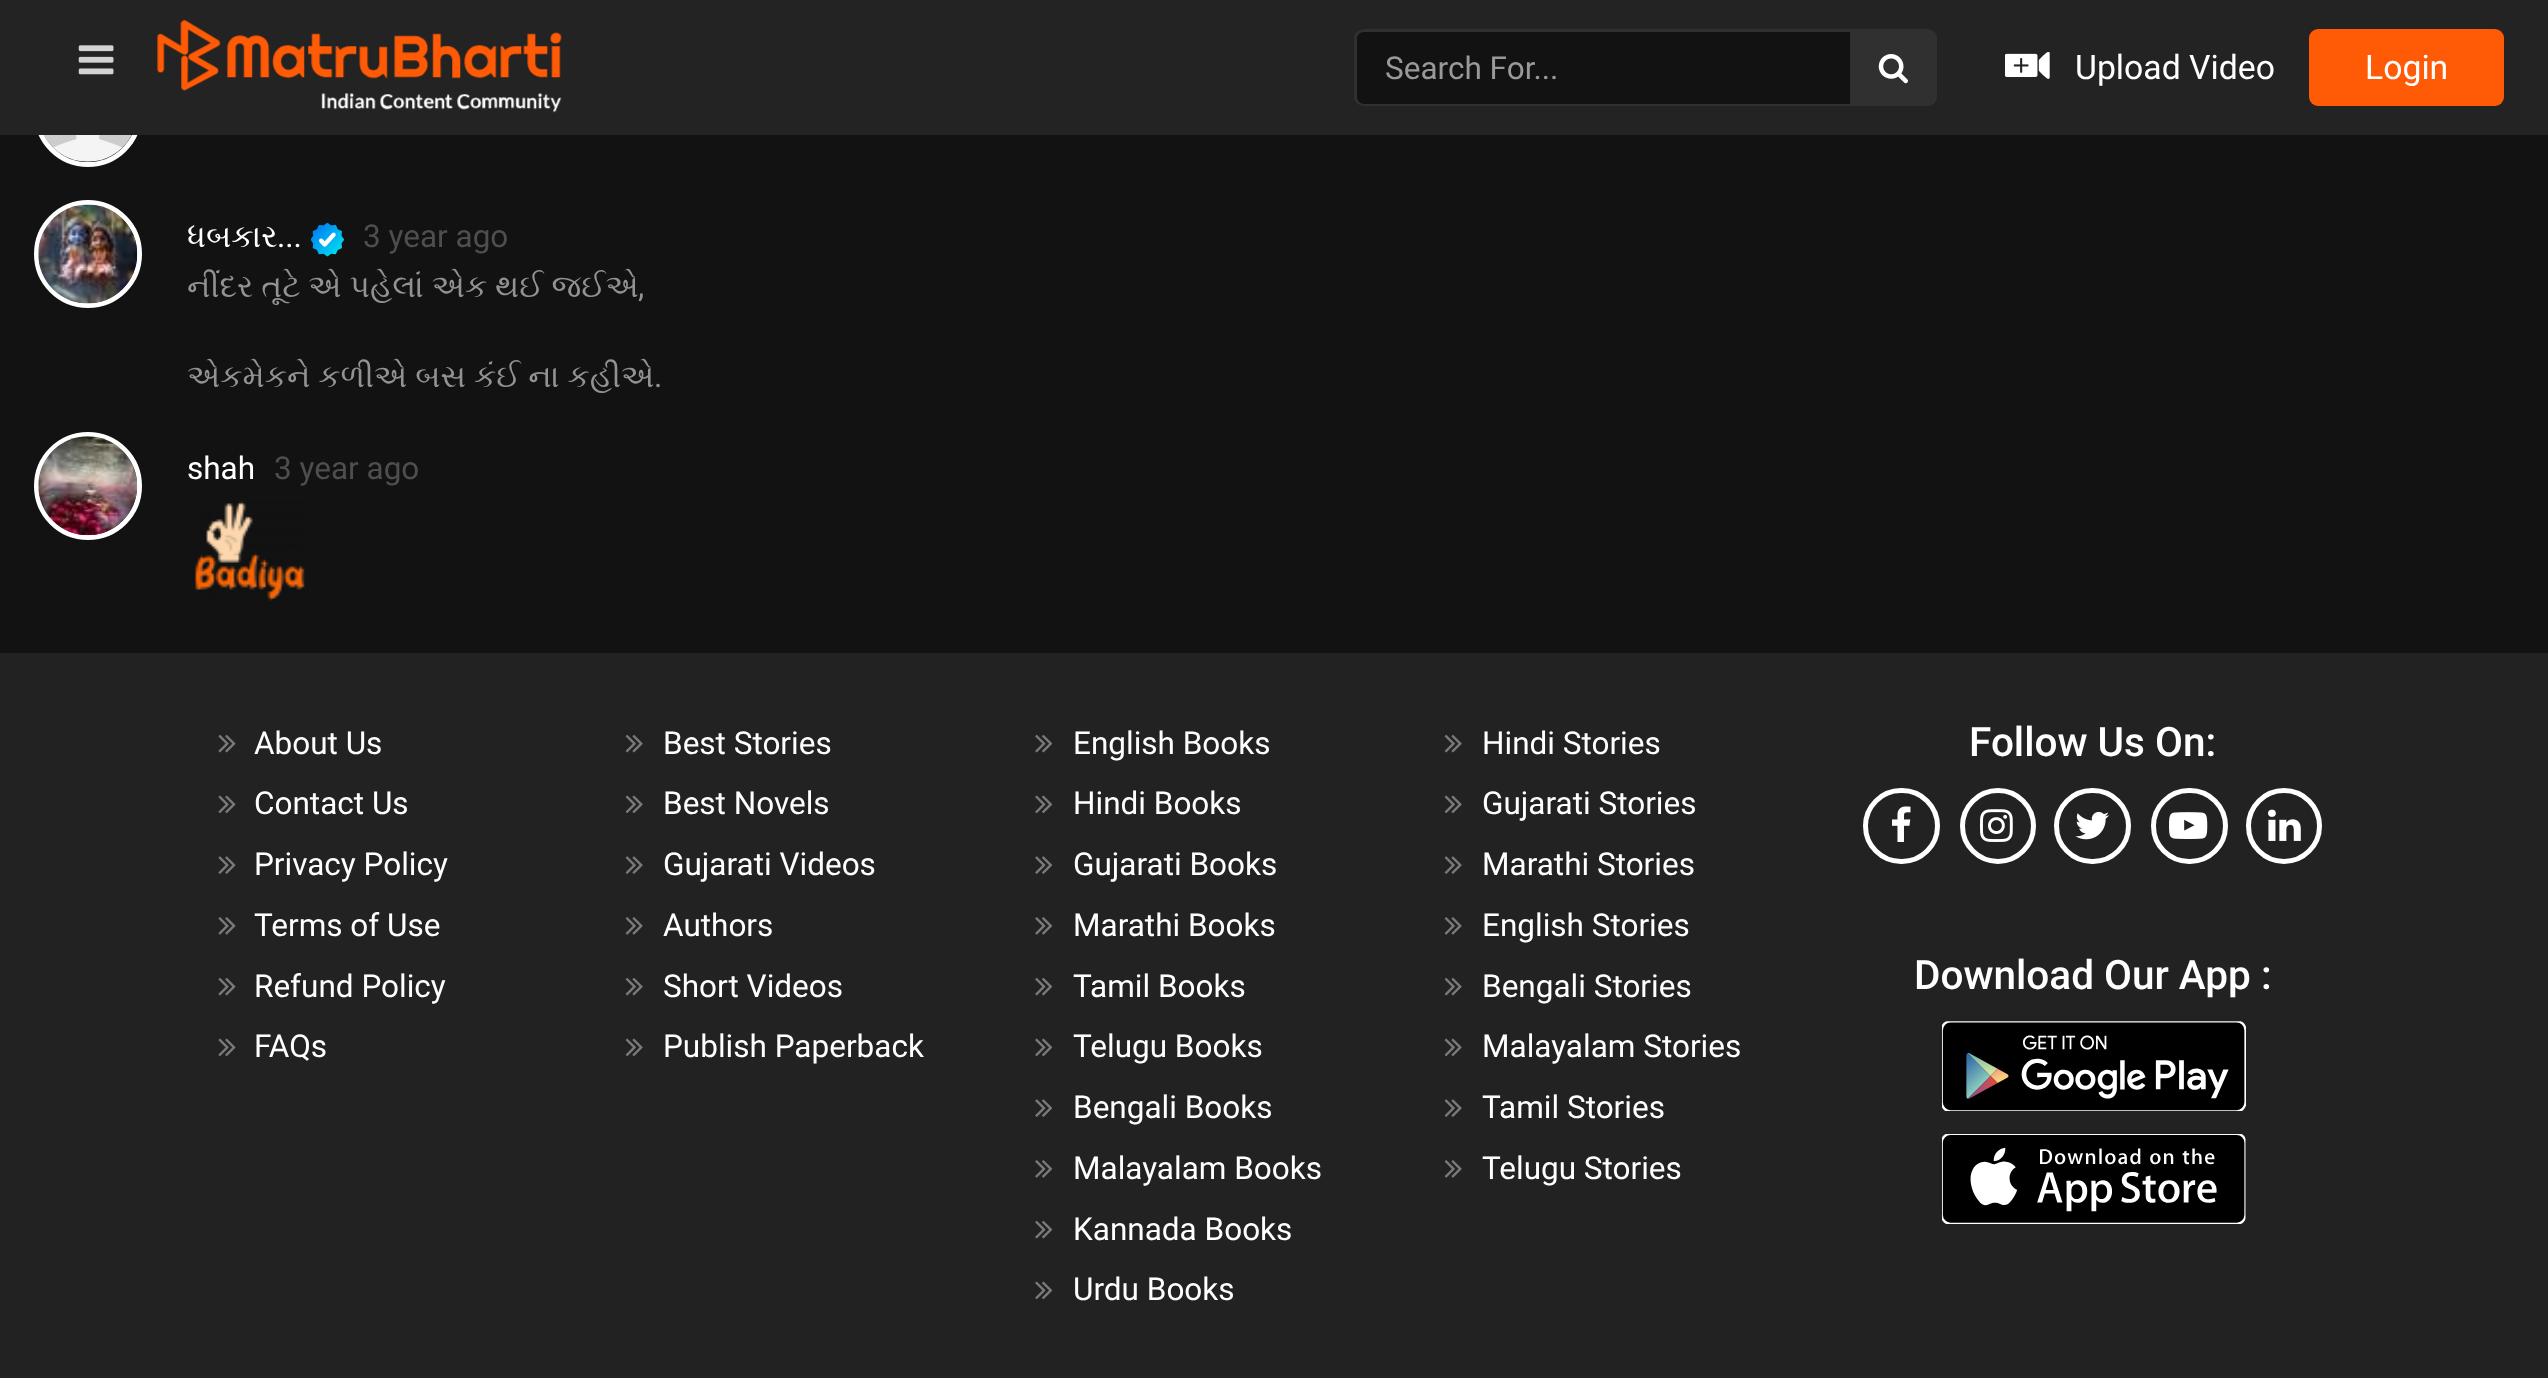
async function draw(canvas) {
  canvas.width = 2548
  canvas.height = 1378
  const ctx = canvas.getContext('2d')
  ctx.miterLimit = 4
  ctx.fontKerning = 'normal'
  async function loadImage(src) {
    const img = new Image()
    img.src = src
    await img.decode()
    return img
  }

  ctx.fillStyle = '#121212'
  ctx.fillRect(0, 0, 2548, 1378)
  ctx.beginPath()
  ctx.arc(88, 113, 51.5, 0, 2 * Math.PI)
  ctx.strokeStyle = '#fff'
  ctx.lineWidth = 5
  ctx.stroke()
  ctx.fillStyle = '#232323'
  ctx.fillRect(0, 0, 2548, 135)
  ctx.drawImage(await loadImage('image0.png'), 78, 45, 36, 30)
  ctx.drawImage(await loadImage('image1.png'), 157, 20, 405, 93)
  ctx.fillStyle = '#121212'
  ctx.beginPath()
  ctx.roundRect(1355, 29, 495, 77, [9, 0, 0, 9])
  ctx.fill()
  ctx.fillStyle = '#303030'
  ctx.beginPath()
  ctx.moveTo(1364, 29)
  ctx.lineTo(1850, 29)
  ctx.lineTo(1850, 106)
  ctx.lineTo(1364, 106)
  ctx.bezierCurveTo(1359, 106, 1354, 102, 1354, 97)
  ctx.lineTo(1354, 38)
  ctx.bezierCurveTo(1354, 33, 1359, 29, 1364, 29)
  ctx.closePath()
  ctx.moveTo(1364, 32)
  ctx.lineTo(1850, 32)
  ctx.lineTo(1850, 104)
  ctx.lineTo(1364, 104)
  ctx.bezierCurveTo(1360, 104, 1357, 100, 1357, 97)
  ctx.lineTo(1357, 38)
  ctx.bezierCurveTo(1357, 35, 1360, 32, 1364, 32)
  ctx.closePath()
  ctx.fill('evenodd')
  ctx.font = '31.5px Roboto'
  ctx.fillStyle = '#999'
  ctx.fillText('Search For...', 1385, 79)
  ctx.fillStyle = '#303030'
  ctx.beginPath()
  ctx.roundRect(1850, 29, 87, 77, [0, 9, 9, 0])
  ctx.fill()
  ctx.drawImage(await loadImage('image2.png'), 1878, 54, 30, 30)
  ctx.drawImage(await loadImage('image3.png'), 2005, 52, 45, 27)
  ctx.font = '33.75px Roboto'
  ctx.fillStyle = '#fff'
  ctx.fillText('Upload Video', 2075, 79)
  ctx.fillStyle = '#ff5a06'
  ctx.beginPath()
  ctx.roundRect(2309, 29, 195, 77, 9)
  ctx.fill()
  ctx.fillStyle = '#fff'
  ctx.fillText('Login', 2365, 79)
  ctx.drawImage(await loadImage('image4.png'), 43, 135, 89, 27)
  ctx.beginPath()
  ctx.arc(88, 254, 51.5, 0, 2 * Math.PI)
  ctx.stroke()
  ctx.drawImage(await loadImage('image5.png'), 38, 204, 100, 100)
  ctx.font = '31.5px FreeSerif'
  ctx.fillText('ધબકાર', 187, 247)
  ctx.font = '31.5px Roboto'
  ctx.fillText('...', 277, 247)
  ctx.drawImage(await loadImage('image6.png'), 311, 223, 33, 34)
  ctx.fillStyle = '#4e4e4e'
  ctx.fillText('3 year ago', 363, 247)
  ctx.font = '31.5px FreeSerif'
  ctx.fillStyle = '#929292'
  ctx.fillText('નીંદર તૂટે એ પહેલાં એક થઈ જઈએ', 187, 297)
  ctx.font = '31.5px Roboto'
  ctx.fillText(',', 638, 297)
  ctx.font = '31.5px FreeSerif'
  ctx.fillText('એકમેકને કળીએ બસ કંઈ ના કહીએ', 187, 387)
  ctx.font = '31.5px Roboto'
  ctx.fillText('.', 654, 387)
  ctx.beginPath()
  ctx.arc(88, 486, 51.5, 0, 2 * Math.PI)
  ctx.stroke()
  ctx.drawImage(await loadImage('image7.png'), 38, 436, 100, 100)
  ctx.fillStyle = '#fff'
  ctx.fillText('shah', 187, 479)
  ctx.fillStyle = '#4e4e4e'
  ctx.fillText('3 year ago', 274, 479)
  ctx.drawImage(await loadImage('image8.png'), 195, 501, 110, 100)
  ctx.fillStyle = '#222'
  ctx.fillRect(0, 653, 2548, 725)
  ctx.drawImage(await loadImage('image9.png'), 218, 735, 18, 18)
  ctx.fillStyle = '#fff'
  ctx.fillText('About Us', 254, 754)
  ctx.drawImage(await loadImage('image10.png'), 218, 795, 18, 18)
  ctx.fillText('Contact Us', 254, 814)
  ctx.drawImage(await loadImage('image11.png'), 218, 856, 18, 18)
  ctx.fillText('Privacy Policy', 254, 875)
  ctx.drawImage(await loadImage('image12.png'), 218, 917, 18, 18)
  ctx.fillText('Terms of Use', 254, 936)
  ctx.drawImage(await loadImage('image9.png'), 218, 978, 18, 18)
  ctx.fillText('Refund Policy', 254, 997)
  ctx.drawImage(await loadImage('image10.png'), 218, 1038, 18, 18)
  ctx.fillText('FAQs', 254, 1057)
  ctx.drawImage(await loadImage('image13.png'), 625, 735, 18, 18)
  ctx.fillText('Best Stories', 663, 754)
  ctx.drawImage(await loadImage('image14.png'), 625, 795, 18, 18)
  ctx.fillText('Best Novels', 663, 814)
  ctx.drawImage(await loadImage('image15.png'), 625, 856, 18, 18)
  ctx.fillText('Gujarati Videos', 663, 875)
  ctx.drawImage(await loadImage('image16.png'), 625, 917, 18, 18)
  ctx.fillText('Authors', 663, 936)
  ctx.drawImage(await loadImage('image13.png'), 625, 978, 18, 18)
  ctx.fillText('Short Videos', 663, 997)
  ctx.drawImage(await loadImage('image14.png'), 625, 1038, 18, 18)
  ctx.fillText('Publish Paperback', 663, 1057)
  ctx.drawImage(await loadImage('image17.png'), 1035, 735, 18, 18)
  ctx.fillText('English Books', 1073, 754)
  ctx.drawImage(await loadImage('image18.png'), 1035, 795, 18, 18)
  ctx.fillText('Hindi Books', 1073, 814)
  ctx.drawImage(await loadImage('image19.png'), 1035, 856, 18, 18)
  ctx.fillText('Gujarati Books', 1073, 875)
  ctx.drawImage(await loadImage('image20.png'), 1035, 917, 18, 18)
  ctx.fillText('Marathi Books', 1073, 936)
  ctx.drawImage(await loadImage('image17.png'), 1035, 978, 18, 18)
  ctx.fillText('Tamil Books', 1073, 997)
  ctx.drawImage(await loadImage('image18.png'), 1035, 1038, 18, 18)
  ctx.fillText('Telugu Books', 1073, 1057)
  ctx.drawImage(await loadImage('image19.png'), 1035, 1099, 18, 18)
  ctx.fillText('Bengali Books', 1073, 1118)
  ctx.drawImage(await loadImage('image20.png'), 1035, 1160, 18, 18)
  ctx.fillText('Malayalam Books', 1073, 1179)
  ctx.drawImage(await loadImage('image17.png'), 1035, 1221, 18, 18)
  ctx.fillText('Kannada Books', 1073, 1240)
  ctx.drawImage(await loadImage('image18.png'), 1035, 1281, 18, 18)
  ctx.fillText('Urdu Books', 1073, 1300)
  ctx.drawImage(await loadImage('image13.png'), 1444, 735, 18, 18)
  ctx.fillText('Hindi Stories', 1482, 754)
  ctx.drawImage(await loadImage('image14.png'), 1444, 795, 18, 18)
  ctx.fillText('Gujarati Stories', 1482, 814)
  ctx.drawImage(await loadImage('image15.png'), 1444, 856, 18, 18)
  ctx.fillText('Marathi Stories', 1482, 875)
  ctx.drawImage(await loadImage('image16.png'), 1444, 917, 18, 18)
  ctx.fillText('English Stories', 1482, 936)
  ctx.drawImage(await loadImage('image13.png'), 1444, 978, 18, 18)
  ctx.fillText('Bengali Stories', 1482, 997)
  ctx.drawImage(await loadImage('image14.png'), 1444, 1038, 18, 18)
  ctx.fillText('Malayalam Stories', 1482, 1057)
  ctx.drawImage(await loadImage('image15.png'), 1444, 1099, 18, 18)
  ctx.fillText('Tamil Stories', 1482, 1118)
  ctx.drawImage(await loadImage('image16.png'), 1444, 1160, 18, 18)
  ctx.fillText('Telugu Stories', 1482, 1179)
  ctx.font = '500 40.5px Roboto'
  ctx.fillText('Follow Us On:', 1969, 756)
  ctx.beginPath()
  ctx.roundRect(1865.5, 790.5, 72, 71, 35.5)
  ctx.stroke()
  ctx.drawImage(await loadImage('image21.png'), 1892, 806, 19, 36)
  ctx.beginPath()
  ctx.arc(1998, 826, 35.5, 0, 2 * Math.PI)
  ctx.stroke()
  ctx.drawImage(await loadImage('image22.png'), 1980, 809, 33, 33)
  ctx.beginPath()
  ctx.roundRect(2056.5, 790.5, 72, 71, 35.5)
  ctx.stroke()
  ctx.drawImage(await loadImage('image23.png'), 2075, 811, 34, 29)
  ctx.beginPath()
  ctx.roundRect(2153.5, 790.5, 72, 71, 35.5)
  ctx.stroke()
  ctx.drawImage(await loadImage('image24.png'), 2169, 812, 39, 27)
  ctx.beginPath()
  ctx.arc(2284, 826, 35.5, 0, 2 * Math.PI)
  ctx.stroke()
  ctx.drawImage(await loadImage('image25.png'), 2268, 809, 33, 32)
  ctx.fillText('Download Our App :', 1914, 989)
  ctx.drawImage(await loadImage('image26.png'), 1942, 1021, 304, 90)
  ctx.drawImage(await loadImage('image27.png'), 1942, 1134, 304, 90)
}

draw(document.querySelector('canvas'))
